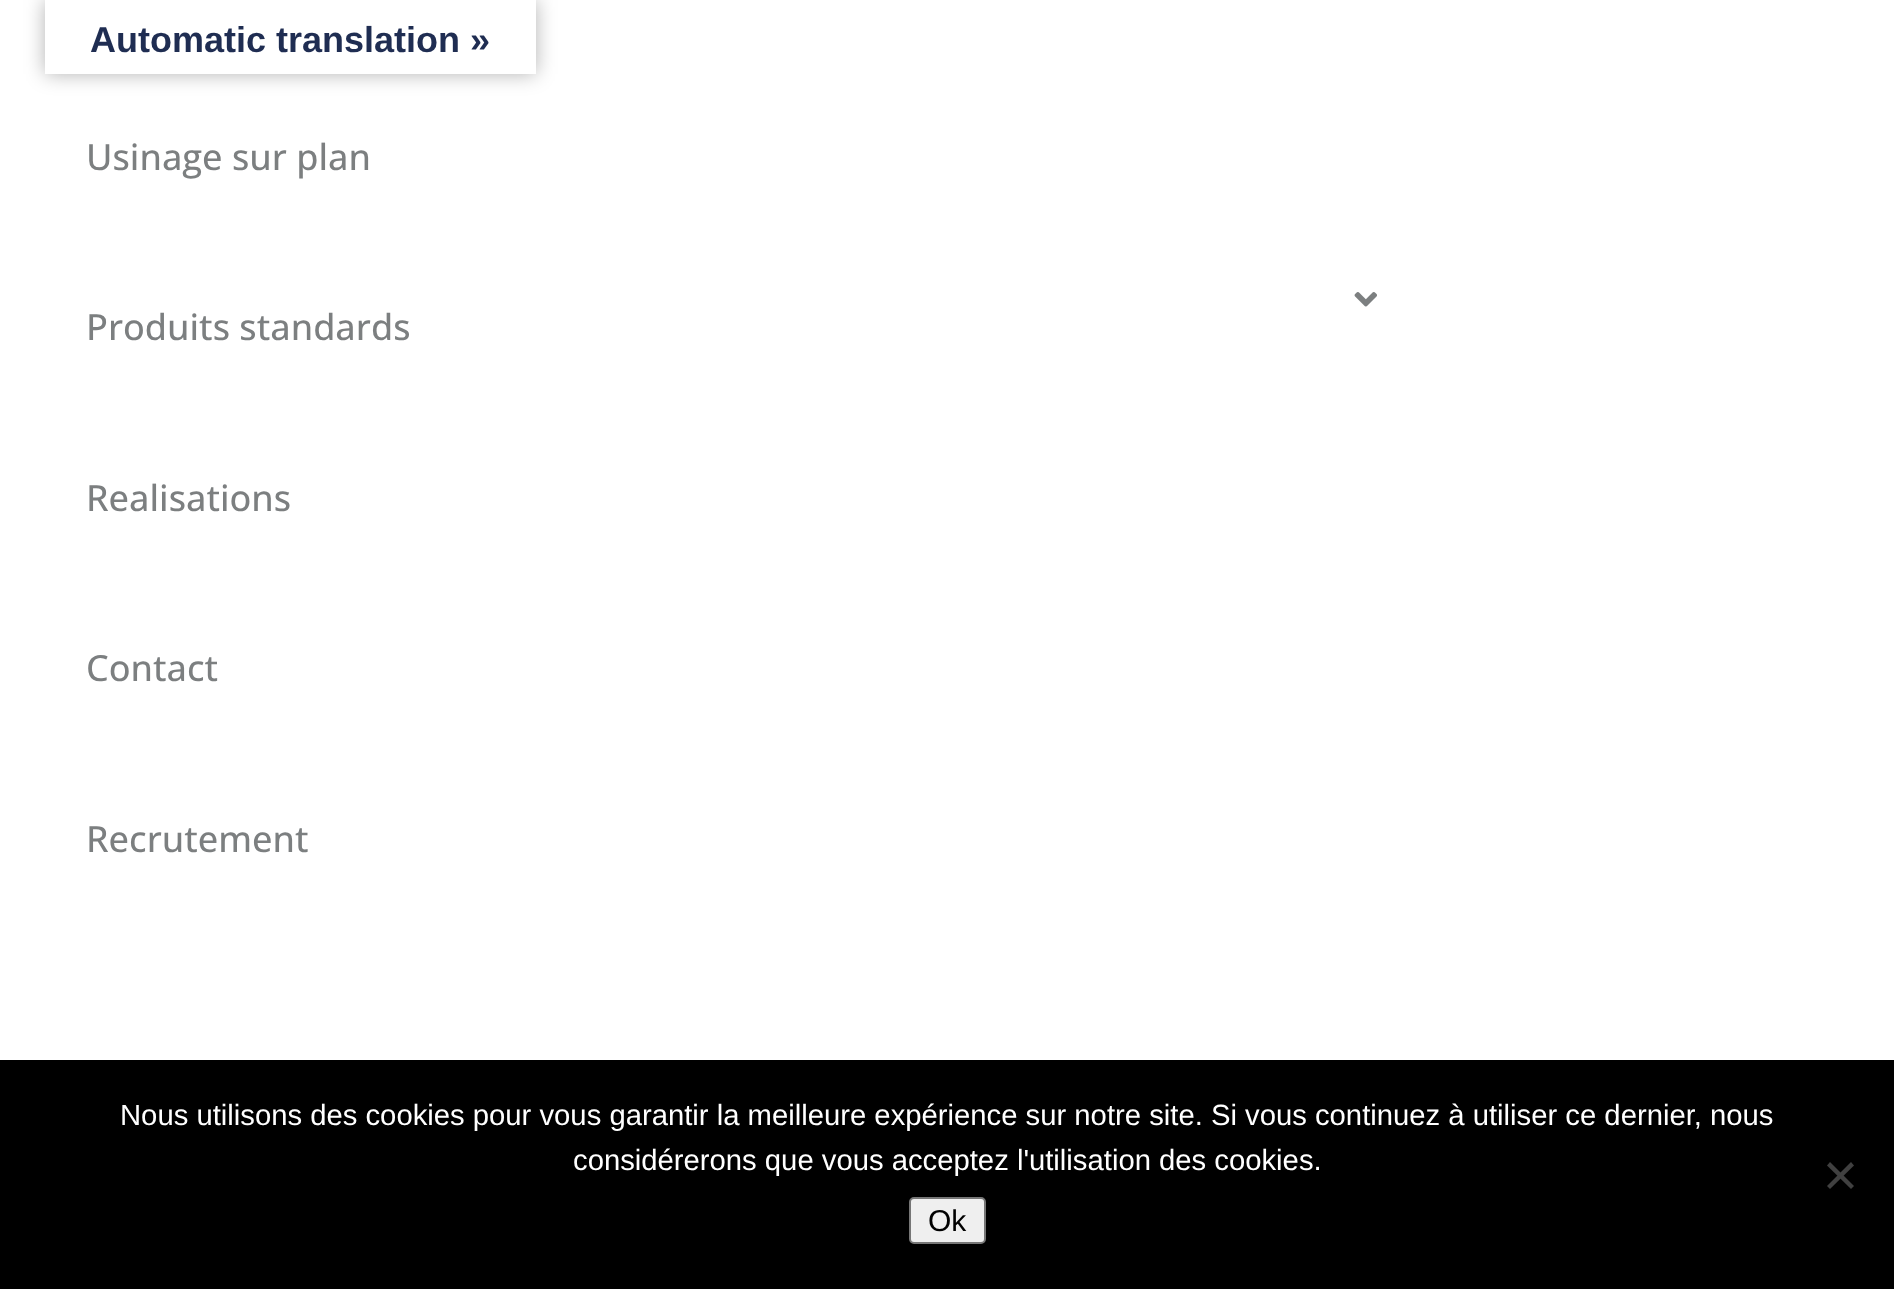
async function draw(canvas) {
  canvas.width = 1894
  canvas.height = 1289
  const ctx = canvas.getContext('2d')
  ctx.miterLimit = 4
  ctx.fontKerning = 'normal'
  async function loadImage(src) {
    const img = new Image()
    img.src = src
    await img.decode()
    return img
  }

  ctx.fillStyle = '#fff'
  ctx.fillRect(0, 0, 1894, 1289)
  ctx.fillStyle = '#0000004d'
  ctx.filter = 'blur(10px)'
  ctx.beginPath()
  ctx.rect(45, 0, 491, 74)
  ctx.fill()
  ctx.filter = 'none'
  ctx.fillStyle = '#fff'
  ctx.fillRect(45, 0, 491, 74)
  ctx.font = 'bold 36px Liberation Sans'
  ctx.fillStyle = '#1f2d52'
  ctx.fillText('Automatic translation »', 90, 52)
  ctx.font = '500 36px Open Sans'
  ctx.fillStyle = '#7c7f80'
  ctx.fillText('Usinage sur plan', 86, 170)
  ctx.drawImage(await loadImage('image0.png'), 1354, 292, 23, 15)
  ctx.fillText('Produits standards', 86, 340)
  ctx.fillText('Realisations', 86, 511)
  ctx.fillText('Contact', 86, 681)
  ctx.fillText('Recrutement', 86, 852)
  ctx.fillStyle = '#000'
  ctx.fillRect(0, 1060, 1894, 229)
  ctx.font = '29.25px Liberation Sans'
  ctx.fillStyle = '#fff'
  ctx.fillText('Nous utilisons des cookies pour vous garantir la meilleure expérience sur notre site. Si vous continuez à utiliser ce dernier, nous', 120, 1125)
  ctx.fillText('considérerons que vous acceptez l\'utilisation des cookies.', 573, 1170)
  ctx.fillStyle = '#404040'
  ctx.beginPath()
  ctx.moveTo(1851, 1162)
  ctx.lineTo(1854, 1165.5)
  ctx.lineTo(1830, 1189)
  ctx.lineTo(1827, 1186)
  ctx.closePath()
  ctx.fill()
  ctx.beginPath()
  ctx.moveTo(1827, 1165.5)
  ctx.lineTo(1830, 1162)
  ctx.lineTo(1854, 1186)
  ctx.lineTo(1851, 1189)
  ctx.closePath()
  ctx.fill()
  ctx.fillStyle = '#efefef'
  ctx.beginPath()
  ctx.roundRect(910, 1198, 75, 45, 4)
  ctx.fill()
  ctx.strokeStyle = '#767676'
  ctx.lineWidth = 2
  ctx.stroke()
  ctx.font = '30px Liberation Sans'
  ctx.fillStyle = '#000'
  ctx.fillText('Ok', 928, 1231)
}

draw(document.querySelector('canvas'))
